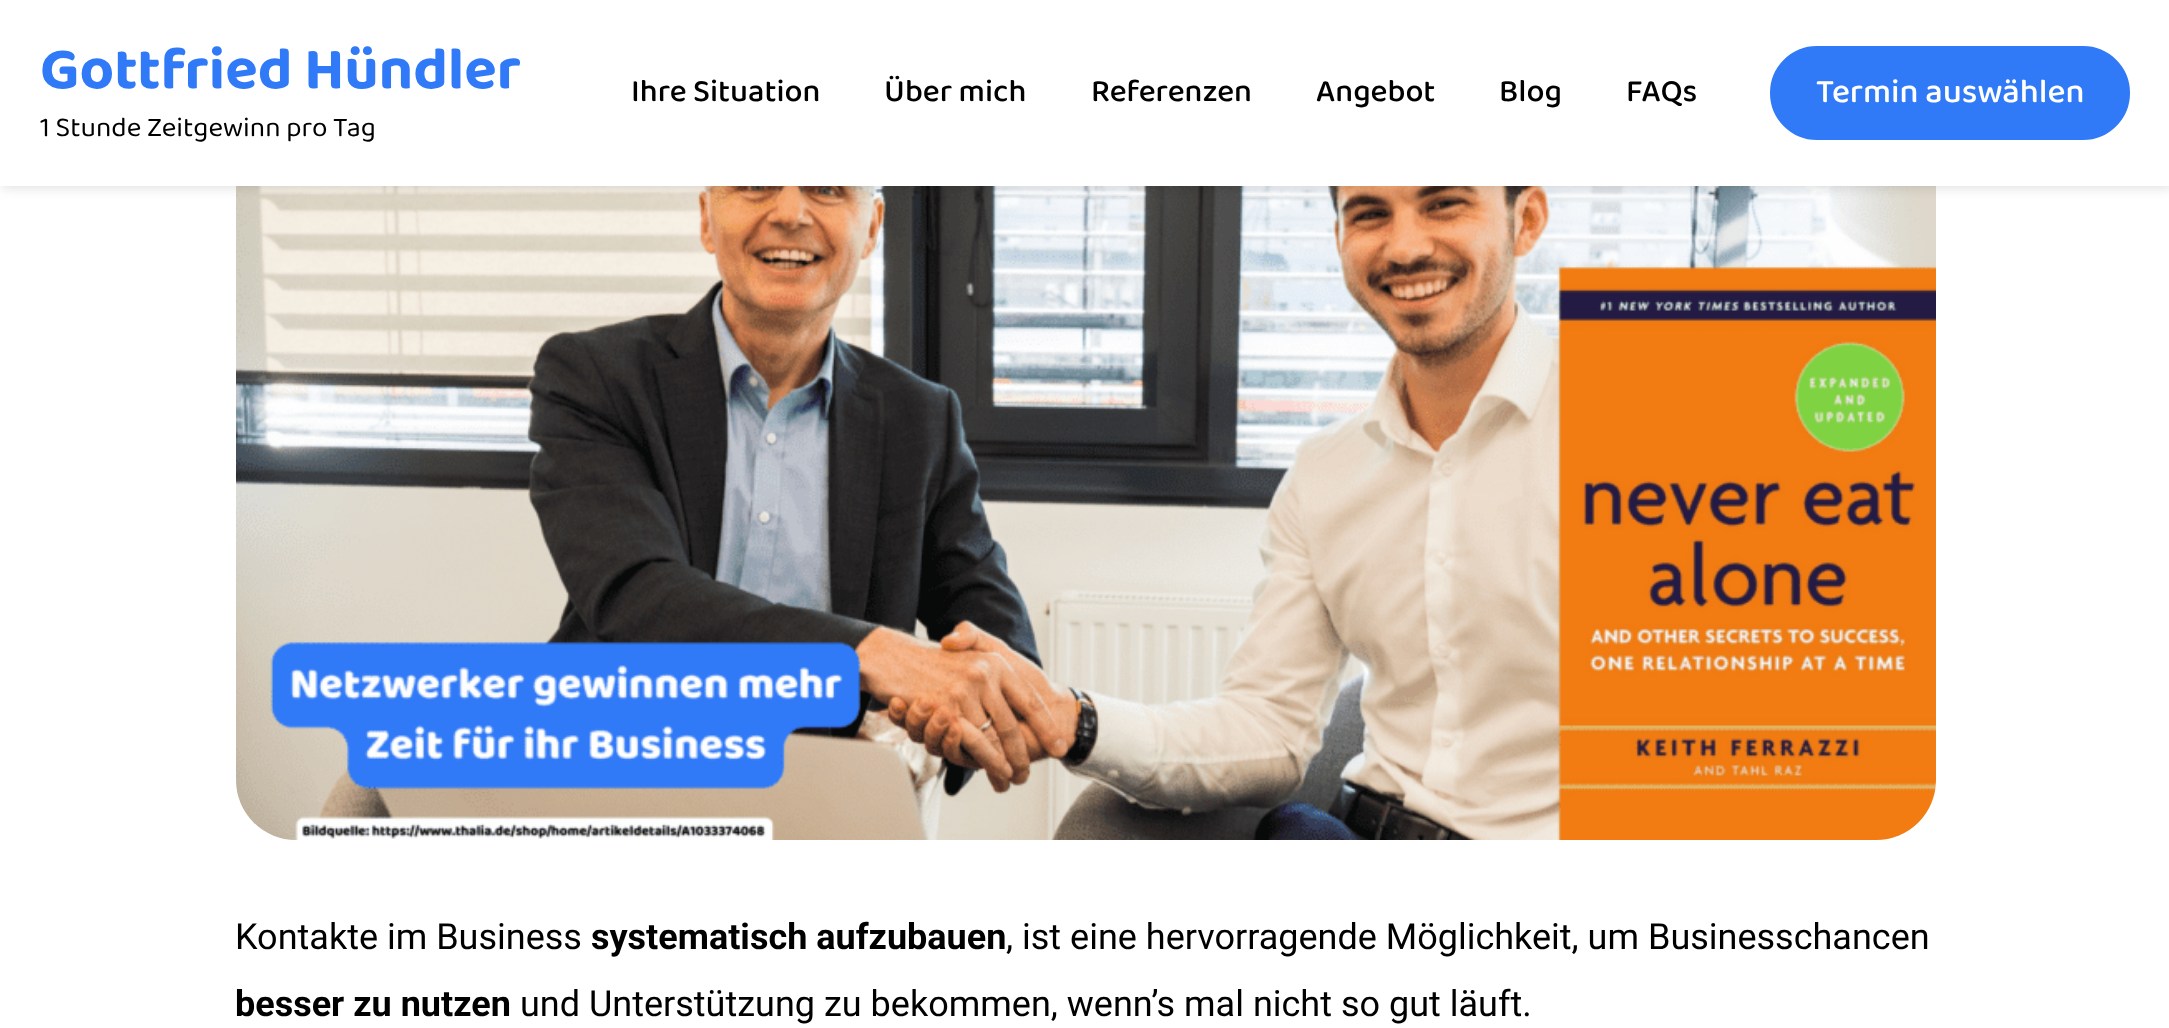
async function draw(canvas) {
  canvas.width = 2169
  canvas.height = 1028
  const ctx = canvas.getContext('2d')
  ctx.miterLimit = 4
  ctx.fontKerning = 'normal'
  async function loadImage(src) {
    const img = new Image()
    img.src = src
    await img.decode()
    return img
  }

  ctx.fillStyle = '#fff'
  ctx.fillRect(0, 0, 2169, 1028)
  ctx.drawImage(await loadImage('image0.png'), 236, 186, 1700, 654)
  ctx.fillStyle = '#0000001f'
  ctx.filter = 'blur(6px)'
  ctx.beginPath()
  ctx.rect(2, 2, 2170, 186)
  ctx.fill()
  ctx.filter = 'none'
  ctx.fillStyle = '#fff'
  ctx.fillRect(0, 0, 2169, 186)
  ctx.font = 'bold 60px "Baloo Thambi 2"'
  ctx.fillStyle = '#3079f7'
  ctx.fillText('Gottfried Hündler', 40, 88)
  ctx.font = '28px "Baloo Thambi 2"'
  ctx.fillStyle = '#000'
  ctx.fillText('1 Stunde Zeitgewinn pro Tag', 40, 136)
  ctx.font = '500 32px "Baloo Thambi 2"'
  ctx.fillText('Ihre Situation', 631, 101)
  ctx.fillText('Über mich', 884, 101)
  ctx.fillText('Referenzen', 1091, 101)
  ctx.fillText('Angebot', 1316, 101)
  ctx.fillText('Blog', 1499, 101)
  ctx.fillText('FAQs', 1626, 101)
  ctx.fillStyle = '#3079f7'
  ctx.beginPath()
  ctx.roundRect(1773, 49, 354, 88, 44)
  ctx.fill()
  ctx.strokeStyle = '#3079f7'
  ctx.lineWidth = 6
  ctx.stroke()
  ctx.font = '500 34px "Baloo Thambi 2"'
  ctx.fillStyle = '#fff'
  ctx.fillText('Termin auswählen', 1816, 102)
  ctx.font = '36px Roboto'
  ctx.fillStyle = '#000'
  ctx.fillText('Kontakte im Business', 235, 949)
  ctx.font = 'bold 36px Roboto'
  ctx.fillText('systematisch aufzubauen', 591, 949)
  ctx.font = '36px Roboto'
  ctx.fillText(', ist eine hervorragende Möglichkeit, um Businesschancen', 1006, 949)
  ctx.font = 'bold 36px Roboto'
  ctx.fillText('besser zu nutzen', 235, 1016)
  ctx.font = '36px Roboto'
  ctx.fillText('und Unterstützung zu bekommen, wenn’s mal nicht so gut läuft.', 520, 1016)
}

draw(document.querySelector('canvas'))
